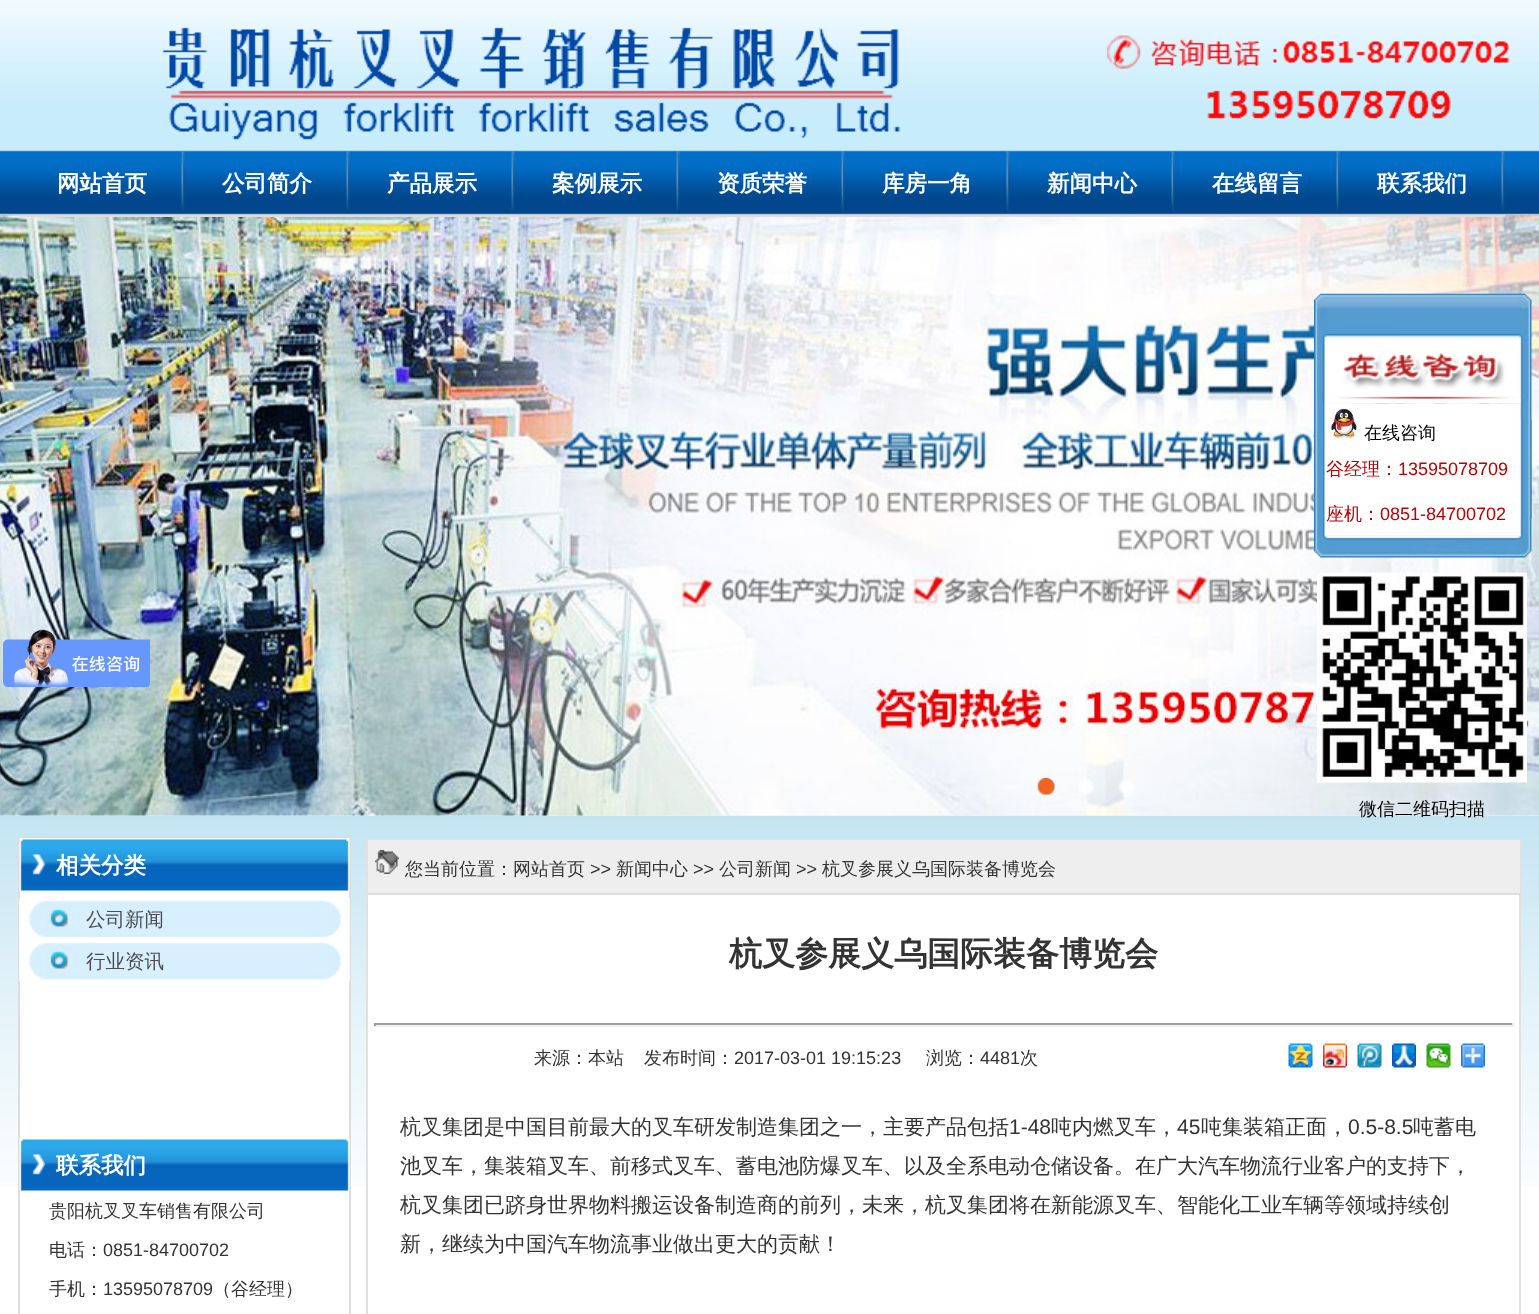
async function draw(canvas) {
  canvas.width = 1539
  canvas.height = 1314
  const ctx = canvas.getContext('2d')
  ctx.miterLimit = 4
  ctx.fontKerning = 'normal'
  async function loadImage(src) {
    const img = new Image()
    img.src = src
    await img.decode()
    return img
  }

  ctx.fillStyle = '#fff'
  ctx.fillRect(0, 0, 1539, 1314)
  ctx.drawImage(await loadImage('image0.png'), 0, 0, 1539, 1186)
  ctx.drawImage(await loadImage('image1.png'), 162, 27, 739, 113)
  ctx.drawImage(await loadImage('image2.png'), 1106, 35, 404, 84)
  ctx.fillStyle = '#eee'
  ctx.fillRect(0, 815, 1539, 1)
  ctx.drawImage(await loadImage('image7.png'), 0, 215, 1539, 601)
  ctx.fillStyle = '#ddd'
  ctx.fillRect(20, 215, 1485, 2)
  ctx.drawImage(await loadImage('image3.png'), 181, 151, 4, 60)
  ctx.font = 'bold 22.5px WenQuanYi Zen Hei'
  ctx.fillStyle = '#fff'
  ctx.fillText('网站首页', 57, 191)
  ctx.drawImage(await loadImage('image4.png'), 346, 151, 4, 60)
  ctx.fillText('公司简介', 222, 191)
  ctx.drawImage(await loadImage('image5.png'), 511, 151, 4, 60)
  ctx.fillText('产品展示', 387, 191)
  ctx.drawImage(await loadImage('image5.png'), 676, 151, 4, 60)
  ctx.fillText('案例展示', 552, 191)
  ctx.drawImage(await loadImage('image3.png'), 841, 151, 4, 60)
  ctx.fillText('资质荣誉', 717, 191)
  ctx.drawImage(await loadImage('image3.png'), 1006, 151, 4, 60)
  ctx.fillText('库房一角', 882, 191)
  ctx.drawImage(await loadImage('image6.png'), 1171, 151, 4, 60)
  ctx.fillText('新闻中心', 1047, 191)
  ctx.drawImage(await loadImage('image3.png'), 1336, 151, 4, 60)
  ctx.fillText('在线留言', 1212, 191)
  ctx.drawImage(await loadImage('image3.png'), 1501, 151, 4, 60)
  ctx.fillText('联系我们', 1377, 191)
  ctx.drawImage(await loadImage('image8.png'), 1037, 778, 18, 17)
  ctx.drawImage(await loadImage('image9.png'), 1079, 778, 16, 17)
  ctx.drawImage(await loadImage('image10.png'), 1118, 779, 16, 15)
  ctx.drawImage(await loadImage('image11.png'), 3, 629, 147, 58)
  ctx.drawImage(await loadImage('image12.png'), 1314, 293, 218, 110)
  ctx.drawImage(await loadImage('image13.png'), 1314, 403, 12, 132)
  ctx.fillRect(1326, 404, 194, 131)
  ctx.drawImage(await loadImage('image14.png'), 1329, 408, 30, 30)
  ctx.save()
  ctx.beginPath()
  ctx.rect(1326, 408, 180, 33)
  ctx.clip()
  ctx.font = '500 18px WenQuanYi Zen Hei'
  ctx.fillStyle = '#000'
  ctx.fillText('在线咨询', 1364, 439)
  ctx.restore()
  ctx.font = '500 18px WenQuanYi Zen Hei'
  ctx.fillStyle = '#b00'
  ctx.fillText('谷经理：', 1326, 475)
  ctx.font = '18px Liberation Sans'
  ctx.fillText('13595078709', 1398, 475)
  ctx.font = '500 18px WenQuanYi Zen Hei'
  ctx.fillText('座机：', 1326, 520)
  ctx.font = '18px Liberation Sans'
  ctx.fillText('0851-84700702', 1380, 520)
  ctx.drawImage(await loadImage('image15.png'), 1519, 403, 13, 132)
  ctx.drawImage(await loadImage('image16.png'), 1520, 419, 12, 100)
  ctx.drawImage(await loadImage('image17.png'), 1314, 535, 218, 23)
  ctx.drawImage(await loadImage('image18.png'), 1317, 572, 210, 211)
  ctx.font = '500 18px WenQuanYi Zen Hei'
  ctx.fillStyle = '#000'
  ctx.fillText('微信二维码扫描', 1359, 815)
  ctx.fillStyle = '#fff'
  ctx.fillRect(20, 890, 329, 296)
  ctx.strokeStyle = '#ddd'
  ctx.lineWidth = 2
  ctx.strokeRect(19, 838, 331, 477)
  ctx.drawImage(await loadImage('image19.png'), 19, 838, 331, 53)
  ctx.font = 'bold 22.5px WenQuanYi Zen Hei'
  ctx.fillText('相关分类', 56, 873)
  ctx.drawImage(await loadImage('image20.png'), 19, 898, 331, 42)
  ctx.drawImage(await loadImage('image21.png'), 19, 898, 331, 42)
  ctx.font = '500 19.5px WenQuanYi Zen Hei'
  ctx.fillStyle = '#4d4d4d'
  ctx.fillText('公司新闻', 86, 926)
  ctx.drawImage(await loadImage('image20.png'), 19, 940, 331, 42)
  ctx.drawImage(await loadImage('image21.png'), 19, 940, 331, 42)
  ctx.fillText('行业资讯', 86, 968)
  ctx.drawImage(await loadImage('image19.png'), 19, 1138, 331, 53)
  ctx.font = 'bold 22.5px WenQuanYi Zen Hei'
  ctx.fillStyle = '#fff'
  ctx.fillText('联系我们', 56, 1173)
  ctx.font = '500 18px WenQuanYi Zen Hei'
  ctx.fillStyle = '#333'
  ctx.fillText('贵阳杭叉叉车销售有限公司', 49, 1217)
  ctx.fillText('电话：', 49, 1256)
  ctx.font = '18px Liberation Sans'
  ctx.fillText('0851-84700702', 103, 1256)
  ctx.font = '500 18px WenQuanYi Zen Hei'
  ctx.fillText('手机：', 49, 1295)
  ctx.font = '18px Liberation Sans'
  ctx.fillText('13595078709', 103, 1295)
  ctx.font = '500 18px WenQuanYi Zen Hei'
  ctx.fillText('（谷经理）', 213, 1295)
  ctx.fillStyle = '#fff'
  ctx.fillRect(368, 895, 1151, 291)
  ctx.strokeStyle = '#e1e1e1'
  ctx.strokeRect(367, 840, 1153, 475)
  ctx.fillStyle = '#eee'
  ctx.fillRect(368, 840, 1152, 53)
  ctx.drawImage(await loadImage('image22.png'), 375, 850, 24, 24)
  ctx.fillStyle = '#333'
  ctx.fillText('您当前位置：网站首页', 405, 875)
  ctx.font = '18px Liberation Sans'
  ctx.fillText('>>', 590, 875)
  ctx.font = '500 18px WenQuanYi Zen Hei'
  ctx.fillText('新闻中心', 616, 875)
  ctx.font = '18px Liberation Sans'
  ctx.fillText('>>', 693, 875)
  ctx.font = '500 18px WenQuanYi Zen Hei'
  ctx.fillText('公司新闻', 719, 875)
  ctx.font = '18px Liberation Sans'
  ctx.fillText('>>', 796, 875)
  ctx.font = '500 18px WenQuanYi Zen Hei'
  ctx.fillText('杭叉参展义乌国际装备博览会', 822, 875)
  ctx.fillStyle = '#ddd'
  ctx.fillRect(368, 893, 1152, 2)
  ctx.font = 'bold 33px WenQuanYi Zen Hei'
  ctx.fillStyle = '#333'
  ctx.fillText('杭叉参展义乌国际装备博览会', 729, 965)
  ctx.fillStyle = '#9f9f9f'
  ctx.fillRect(374, 1023, 1140, 2)
  ctx.fillStyle = '#eee'
  ctx.fillRect(1512, 1023, 2, 3)
  ctx.fillRect(374, 1025, 1140, 2)
  ctx.fillStyle = '#9f9f9f'
  ctx.fillRect(374, 1023, 2, 3)
  ctx.font = '500 18px WenQuanYi Zen Hei'
  ctx.fillStyle = '#333'
  ctx.fillText('来源：本站', 534, 1064)
  ctx.fillText('发布时间：', 644, 1064)
  ctx.font = '18px Liberation Sans'
  ctx.fillText('2017-03-01 19:15:23', 734, 1064)
  ctx.font = '500 18px WenQuanYi Zen Hei'
  ctx.fillText('浏览：', 926, 1064)
  ctx.font = '18px Liberation Sans'
  ctx.fillText('4481', 980, 1064)
  ctx.font = '500 18px WenQuanYi Zen Hei'
  ctx.fillText('次', 1020, 1064)
  ctx.drawImage(await loadImage('image23.png'), 1288, 1043, 25, 25)
  ctx.drawImage(await loadImage('image24.png'), 1323, 1043, 24, 25)
  ctx.drawImage(await loadImage('image25.png'), 1357, 1043, 25, 25)
  ctx.drawImage(await loadImage('image26.png'), 1392, 1043, 24, 25)
  ctx.drawImage(await loadImage('image27.png'), 1426, 1043, 25, 25)
  ctx.drawImage(await loadImage('image28.png'), 1461, 1043, 24, 25)
  ctx.font = '500 21px WenQuanYi Zen Hei'
  ctx.fillText('杭叉集团是中国目前最大的叉车研发制造集团之一，主要产品包括', 400, 1134)
  ctx.font = '21px Liberation Sans'
  ctx.fillText('1-48', 1009, 1134)
  ctx.font = '500 21px WenQuanYi Zen Hei'
  ctx.fillText('吨内燃叉车，', 1051, 1134)
  ctx.font = '21px Liberation Sans'
  ctx.fillText('45', 1177, 1134)
  ctx.font = '500 21px WenQuanYi Zen Hei'
  ctx.fillText('吨集装箱正面，', 1201, 1134)
  ctx.font = '21px Liberation Sans'
  ctx.fillText('0.5-8.5', 1348, 1134)
  ctx.font = '500 21px WenQuanYi Zen Hei'
  ctx.fillText('吨蓄电', 1413, 1134)
  ctx.fillText('池叉车，集装箱叉车、前移式叉车、蓄电池防爆叉车、以及全系电动仓储设备。在广大汽车物流行业客户的支持下，', 400, 1173)
  ctx.fillText('杭叉集团已跻身世界物料搬运设备制造商的前列，未来，杭叉集团将在新能源叉车、智能化工业车辆等领域持续创', 400, 1212)
  ctx.fillText('新，继续为中国汽车物流事业做出更大的贡献！', 400, 1251)
}

draw(document.querySelector('canvas'))
